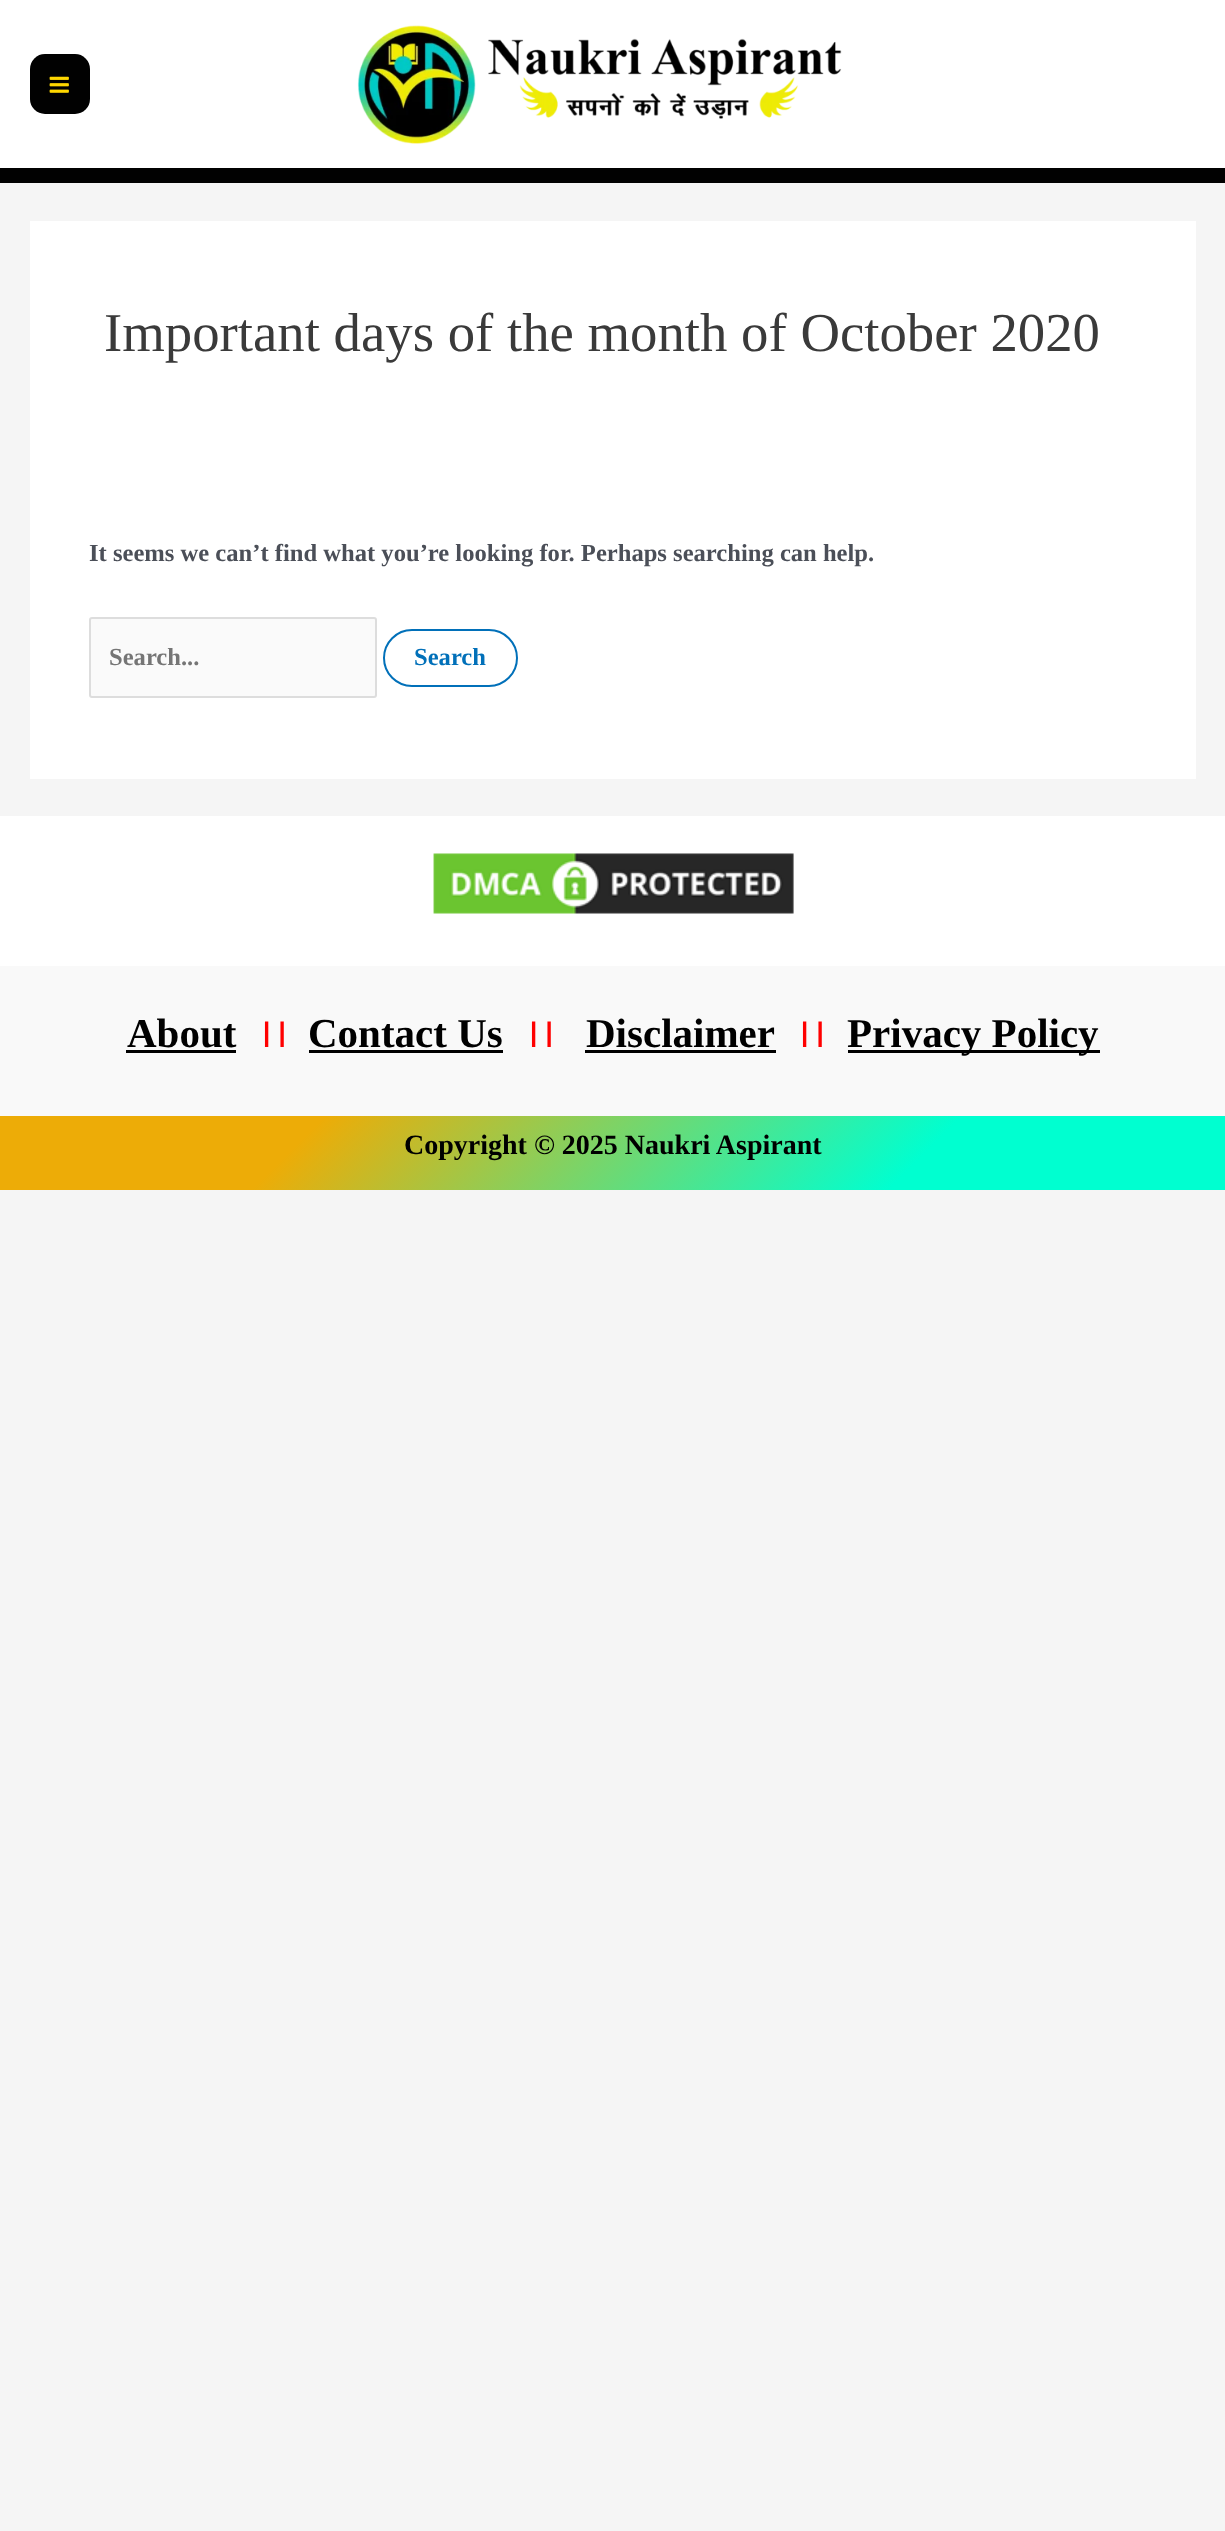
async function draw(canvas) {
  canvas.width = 1225
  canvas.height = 2531
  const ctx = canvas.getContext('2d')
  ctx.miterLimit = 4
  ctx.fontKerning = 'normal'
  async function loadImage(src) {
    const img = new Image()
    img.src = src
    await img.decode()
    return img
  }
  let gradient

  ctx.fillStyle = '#f5f5f5'
  ctx.fillRect(0, 0, 1225, 2531)
  ctx.fillStyle = '#fff'
  ctx.fillRect(0, 0, 1225, 168)
  ctx.fillStyle = '#010101'
  ctx.fillRect(0, 168, 1225, 15)
  ctx.beginPath()
  ctx.roundRect(30, 54, 60, 60, 15)
  ctx.fill()
  ctx.drawImage(await loadImage('image0.png'), 49, 76, 20, 17)
  ctx.drawImage(await loadImage('image1.png'), 357, 25, 485, 119)
  ctx.fillStyle = '#fff'
  ctx.fillRect(30, 221, 1166, 558)
  ctx.font = '54.75px Liberation Serif'
  ctx.fillStyle = '#3a3a3a'
  ctx.fillText('Important days of the month of October 2020', 104, 351)
  ctx.font = 'bold 24.6px Liberation Serif'
  ctx.fillStyle = '#4b4f58'
  ctx.fillText('It seems we can’t find what you’re looking for. Perhaps searching can help.', 89, 561)
  ctx.fillStyle = '#fafafa'
  ctx.beginPath()
  ctx.roundRect(90, 618, 286, 79, 2)
  ctx.fill()
  ctx.strokeStyle = '#ddd'
  ctx.lineWidth = 2
  ctx.stroke()
  ctx.fillStyle = '#757575'
  ctx.fillText('Search...', 109, 665)
  ctx.beginPath()
  ctx.roundRect(384, 630, 133, 56, 28)
  ctx.strokeStyle = '#0170b9'
  ctx.stroke()
  ctx.fillStyle = '#0170b9'
  ctx.fillText('Search', 414, 665)
  ctx.fillStyle = '#fff'
  ctx.fillRect(0, 816, 1225, 150)
  ctx.drawImage(await loadImage('image2.png'), 433, 853, 361, 61)
  ctx.fillStyle = '#f9f9f9'
  ctx.fillRect(0, 966, 1225, 150)
  ctx.font = 'bold 41px Liberation Serif'
  ctx.fillStyle = '#000'
  ctx.fillText('About', 127, 1047)
  ctx.fillRect(126, 1050, 110, 3)
  ctx.font = '41px Noto Sans'
  ctx.fillStyle = '#f00'
  ctx.fillText('।।', 257, 1047)
  ctx.font = 'bold 41px Liberation Serif'
  ctx.fillStyle = '#000'
  ctx.fillText('Contact Us', 308, 1047)
  ctx.fillRect(309, 1050, 194, 3)
  ctx.font = '41px Noto Sans'
  ctx.fillStyle = '#f00'
  ctx.fillText('।।', 524, 1047)
  ctx.font = 'bold 41px Liberation Serif'
  ctx.fillStyle = '#000'
  ctx.fillText('Disclaimer', 586, 1047)
  ctx.fillRect(585, 1050, 191, 3)
  ctx.font = '41px Noto Sans'
  ctx.fillStyle = '#f00'
  ctx.fillText('।।', 795, 1047)
  ctx.fillStyle = '#000'
  ctx.fillRect(848, 1050, 252, 3)
  ctx.font = 'bold 41px Liberation Serif'
  ctx.fillText('Privacy Policy', 847, 1047)
  gradient = ctx.createLinearGradient(288, 828, 938, 1478)
  gradient.addColorStop(0.25, '#edac07')
  gradient.addColorStop(0.74, '#00ffd0')
  ctx.fillStyle = gradient
  ctx.fillRect(0, 1116, 1225, 74)
  ctx.font = 'bold 28px Liberation Serif'
  ctx.fillStyle = '#000'
  ctx.fillText('Copyright © 2025 Naukri Aspirant', 404, 1154)
}

draw(document.querySelector('canvas'))
